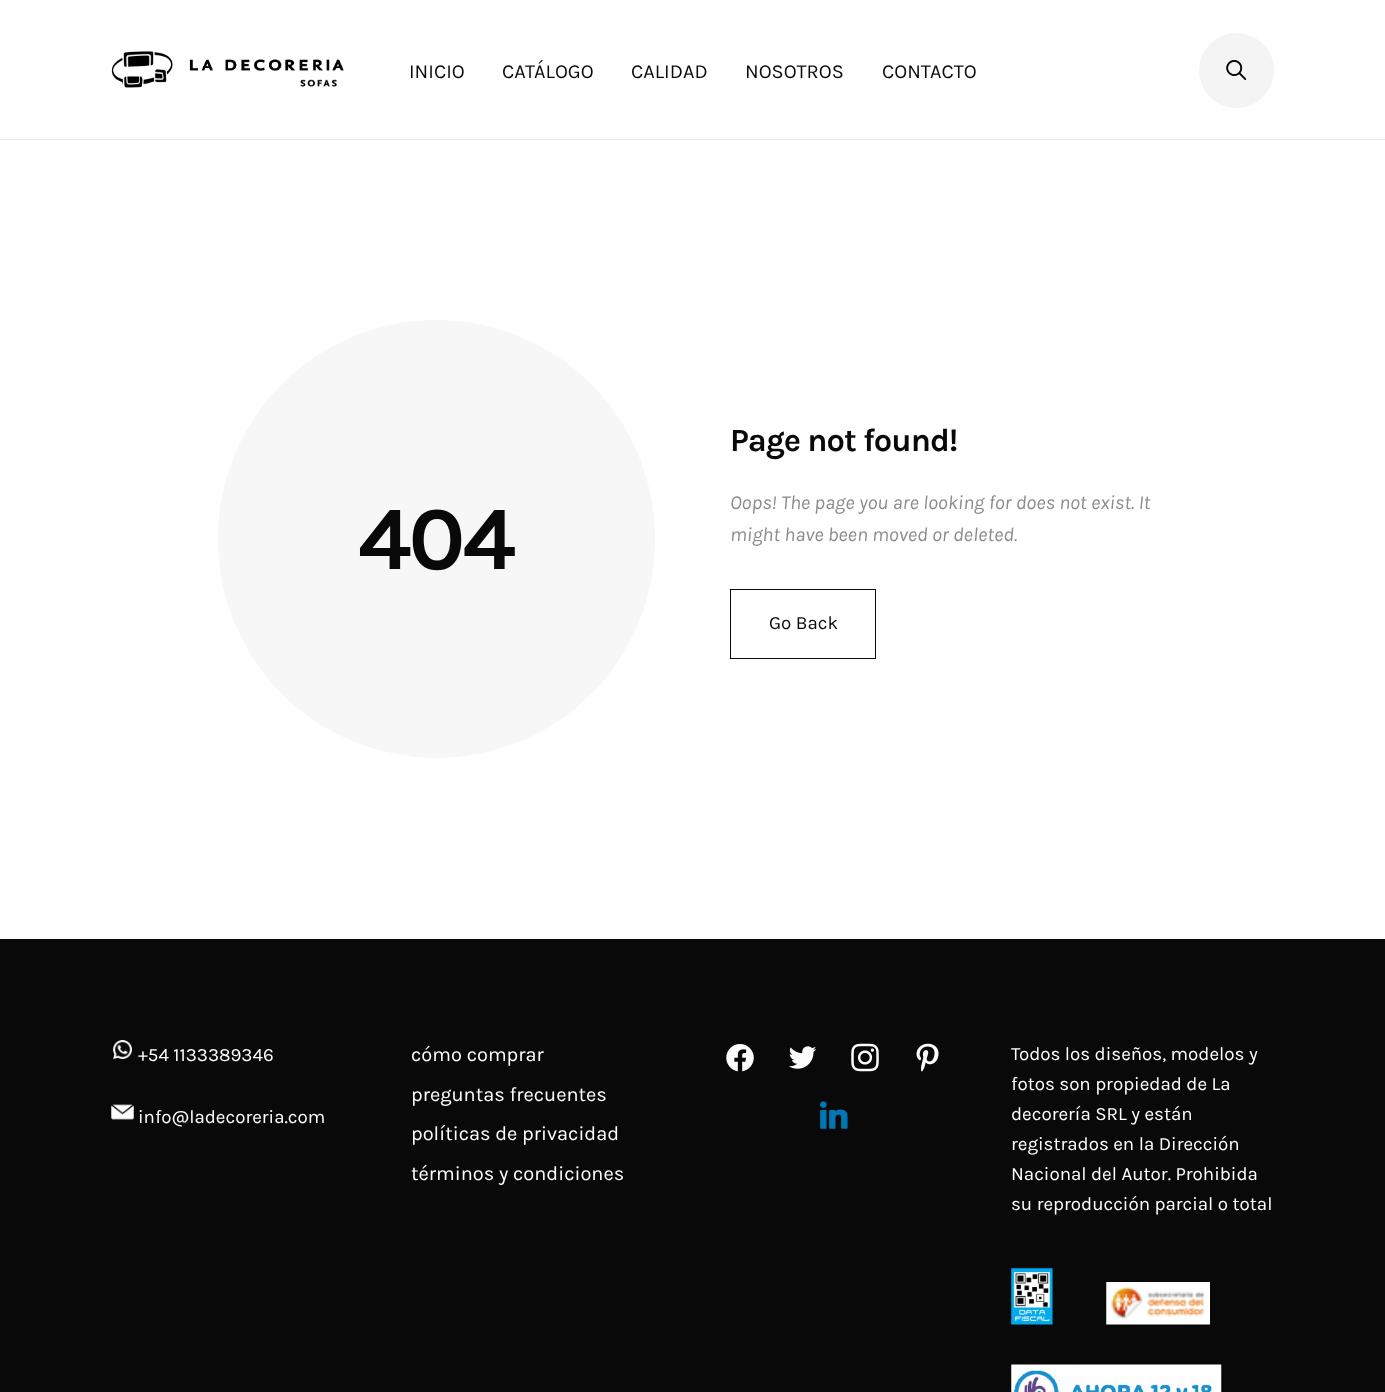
async function draw(canvas) {
  canvas.width = 1385
  canvas.height = 1392
  const ctx = canvas.getContext('2d')
  ctx.miterLimit = 4
  ctx.fontKerning = 'normal'
  async function loadImage(src) {
    const img = new Image()
    img.src = src
    await img.decode()
    return img
  }

  ctx.fillStyle = '#fff'
  ctx.fillRect(0, 0, 1385, 1392)
  ctx.fillStyle = '#e7e7e7'
  ctx.fillRect(0, 139, 1385, 1)
  ctx.drawImage(await loadImage('image0.png'), 111, 51, 233, 37)
  ctx.font = '20px Karla'
  ctx.fillStyle = '#090909'
  ctx.fillText('INICIO', 409, 78)
  ctx.fillText('CATÁLOGO', 502, 78)
  ctx.fillText('CALIDAD', 631, 78)
  ctx.fillText('NOSOTROS', 745, 78)
  ctx.fillText('CONTACTO', 882, 78)
  ctx.fillStyle = '#f4f4f4'
  ctx.beginPath()
  ctx.arc(1236.5, 70.5, 37.5, 0, 2 * Math.PI)
  ctx.fill()
  ctx.drawImage(await loadImage('image1.png'), 1226, 60, 20, 20)
  ctx.fillStyle = '#f7f7f7'
  ctx.beginPath()
  ctx.roundRect(218, 320, 437, 438, 218.5)
  ctx.fill()
  ctx.letterSpacing = '-3px'
  ctx.font = 'bold 90px Karla'
  ctx.fillStyle = '#090909'
  ctx.fillText('404', 358, 569)
  ctx.letterSpacing = '-1px'
  ctx.font = 'bold 32.5px Karla'
  ctx.fillText('Page not found!', 730, 451)
  ctx.letterSpacing = '0px'
  ctx.font = 'italic 20px Karla'
  ctx.fillStyle = '#8b8b8b'
  ctx.fillText('Oops! The page you are looking for does not exist. It', 730, 509)
  ctx.fillText('might have been moved or deleted.', 730, 541)
  ctx.strokeStyle = '#090909'
  ctx.strokeRect(730.5, 589.5, 145, 69)
  ctx.font = '18.75px Karla'
  ctx.fillStyle = '#090909'
  ctx.fillText('Go Back', 769, 629)
  ctx.fillRect(0, 939, 1385, 453)
  ctx.drawImage(await loadImage('image2.png'), 113, 1040, 19, 19)
  ctx.fillStyle = '#fff'
  ctx.fillText('+54 1133389346', 138, 1061)
  ctx.drawImage(await loadImage('image3.png'), 111, 1104, 23, 16)
  ctx.fillText('info@ladecoreria.com', 138, 1123)
  ctx.font = '20px Karla'
  ctx.fillText('cómo comprar', 411, 1061)
  ctx.fillText('preguntas frecuentes', 411, 1101)
  ctx.fillText('políticas de privacidad', 411, 1140)
  ctx.fillText('términos y condiciones', 411, 1180)
  ctx.drawImage(await loadImage('image4.png'), 726, 1044, 28, 28)
  ctx.drawImage(await loadImage('image5.png'), 789, 1046, 28, 23)
  ctx.drawImage(await loadImage('image6.png'), 851, 1043, 28, 29)
  ctx.drawImage(await loadImage('image7.png'), 916, 1043, 23, 29)
  ctx.drawImage(await loadImage('image8.png'), 820, 1101, 28, 28)
  ctx.font = '18.75px Karla'
  ctx.fillText('Todos los diseños, modelos y', 1011, 1060)
  ctx.fillText('fotos son propiedad de La', 1011, 1090)
  ctx.fillText('decorería SRL y están', 1011, 1120)
  ctx.fillText('registrados en la Dirección', 1011, 1150)
  ctx.fillText('Nacional del Autor. Prohibida', 1011, 1180)
  ctx.fillText('su reproducción parcial o total', 1011, 1210)
  ctx.drawImage(await loadImage('image9.png'), 1011, 1268, 42, 57)
  ctx.drawImage(await loadImage('image10.png'), 1106, 1282, 104, 43)
  ctx.drawImage(await loadImage('image11.png'), 1011, 1364, 211, 28)
}

draw(document.querySelector('canvas'))
